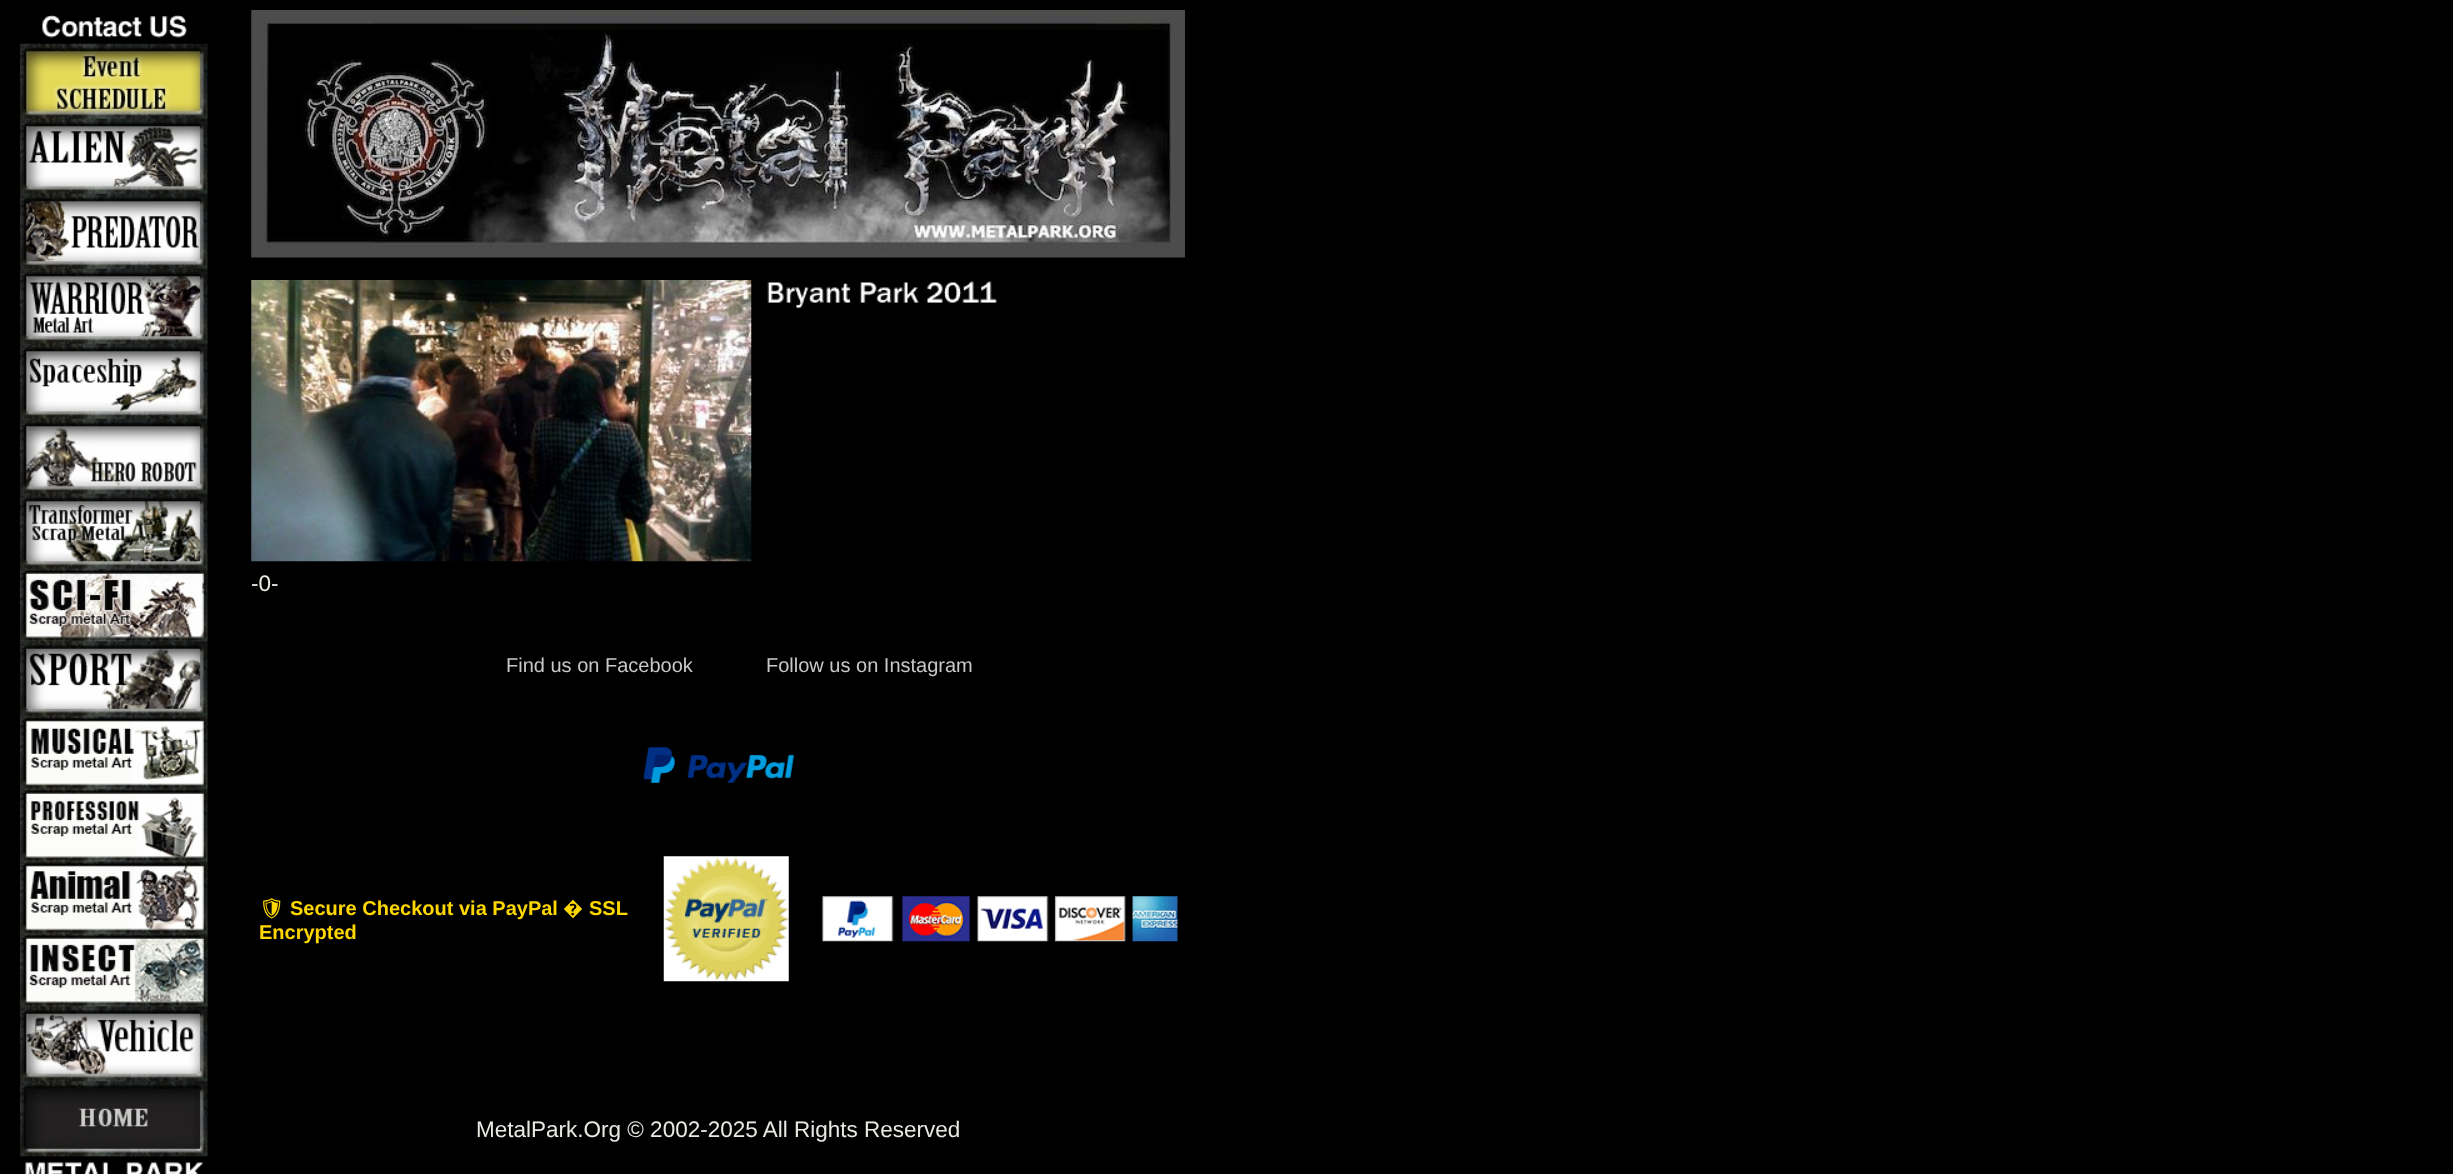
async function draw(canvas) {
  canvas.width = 2453
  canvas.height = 1174
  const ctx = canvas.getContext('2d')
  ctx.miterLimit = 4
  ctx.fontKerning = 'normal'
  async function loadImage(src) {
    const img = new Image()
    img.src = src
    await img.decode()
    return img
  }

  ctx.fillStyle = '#000'
  ctx.fillRect(0, 0, 2453, 1174)
  ctx.drawImage(await loadImage('image0.png'), 19, 15, 189, 1159)
  ctx.drawImage(await loadImage('image1.png'), 251, 10, 934, 248)
  ctx.drawImage(await loadImage('image2.png'), 251, 280, 501, 282)
  ctx.drawImage(await loadImage('image3.png'), 767, 281, 230, 28)
  ctx.font = '22.5px Liberation Sans'
  ctx.fillStyle = '#e9e9e4'
  ctx.fillText('-0-', 251, 591)
  ctx.font = '20px Liberation Sans'
  ctx.fillStyle = '#c8c8c8'
  ctx.fillText('Find us on Facebook', 506, 672)
  ctx.fillText('Follow us on Instagram', 766, 672)
  ctx.drawImage(await loadImage('image4.png'), 643, 747, 151, 36)
  ctx.font = 'bold 20px Noto Emoji'
  ctx.fillStyle = '#ffd700'
  ctx.fillText('🛡', 259, 915)
  ctx.font = 'bold 20px Liberation Sans'
  ctx.fillText('Secure Checkout via PayPal', 290, 915)
  ctx.font = 'bold 20px Noto Sans'
  ctx.fillText('�', 563, 915)
  ctx.font = 'bold 20px Liberation Sans'
  ctx.fillText('SSL', 589, 915)
  ctx.fillText('Encrypted', 259, 939)
  ctx.drawImage(await loadImage('image5.png'), 663, 856, 126, 126)
  ctx.drawImage(await loadImage('image6.png'), 822, 896, 356, 46)
  ctx.font = '22.5px Liberation Sans'
  ctx.fillStyle = '#e9e9e4'
  ctx.fillText('MetalPark.Org © 2002-2025 All Rights Reserved', 476, 1137)
}

draw(document.querySelector('canvas'))
